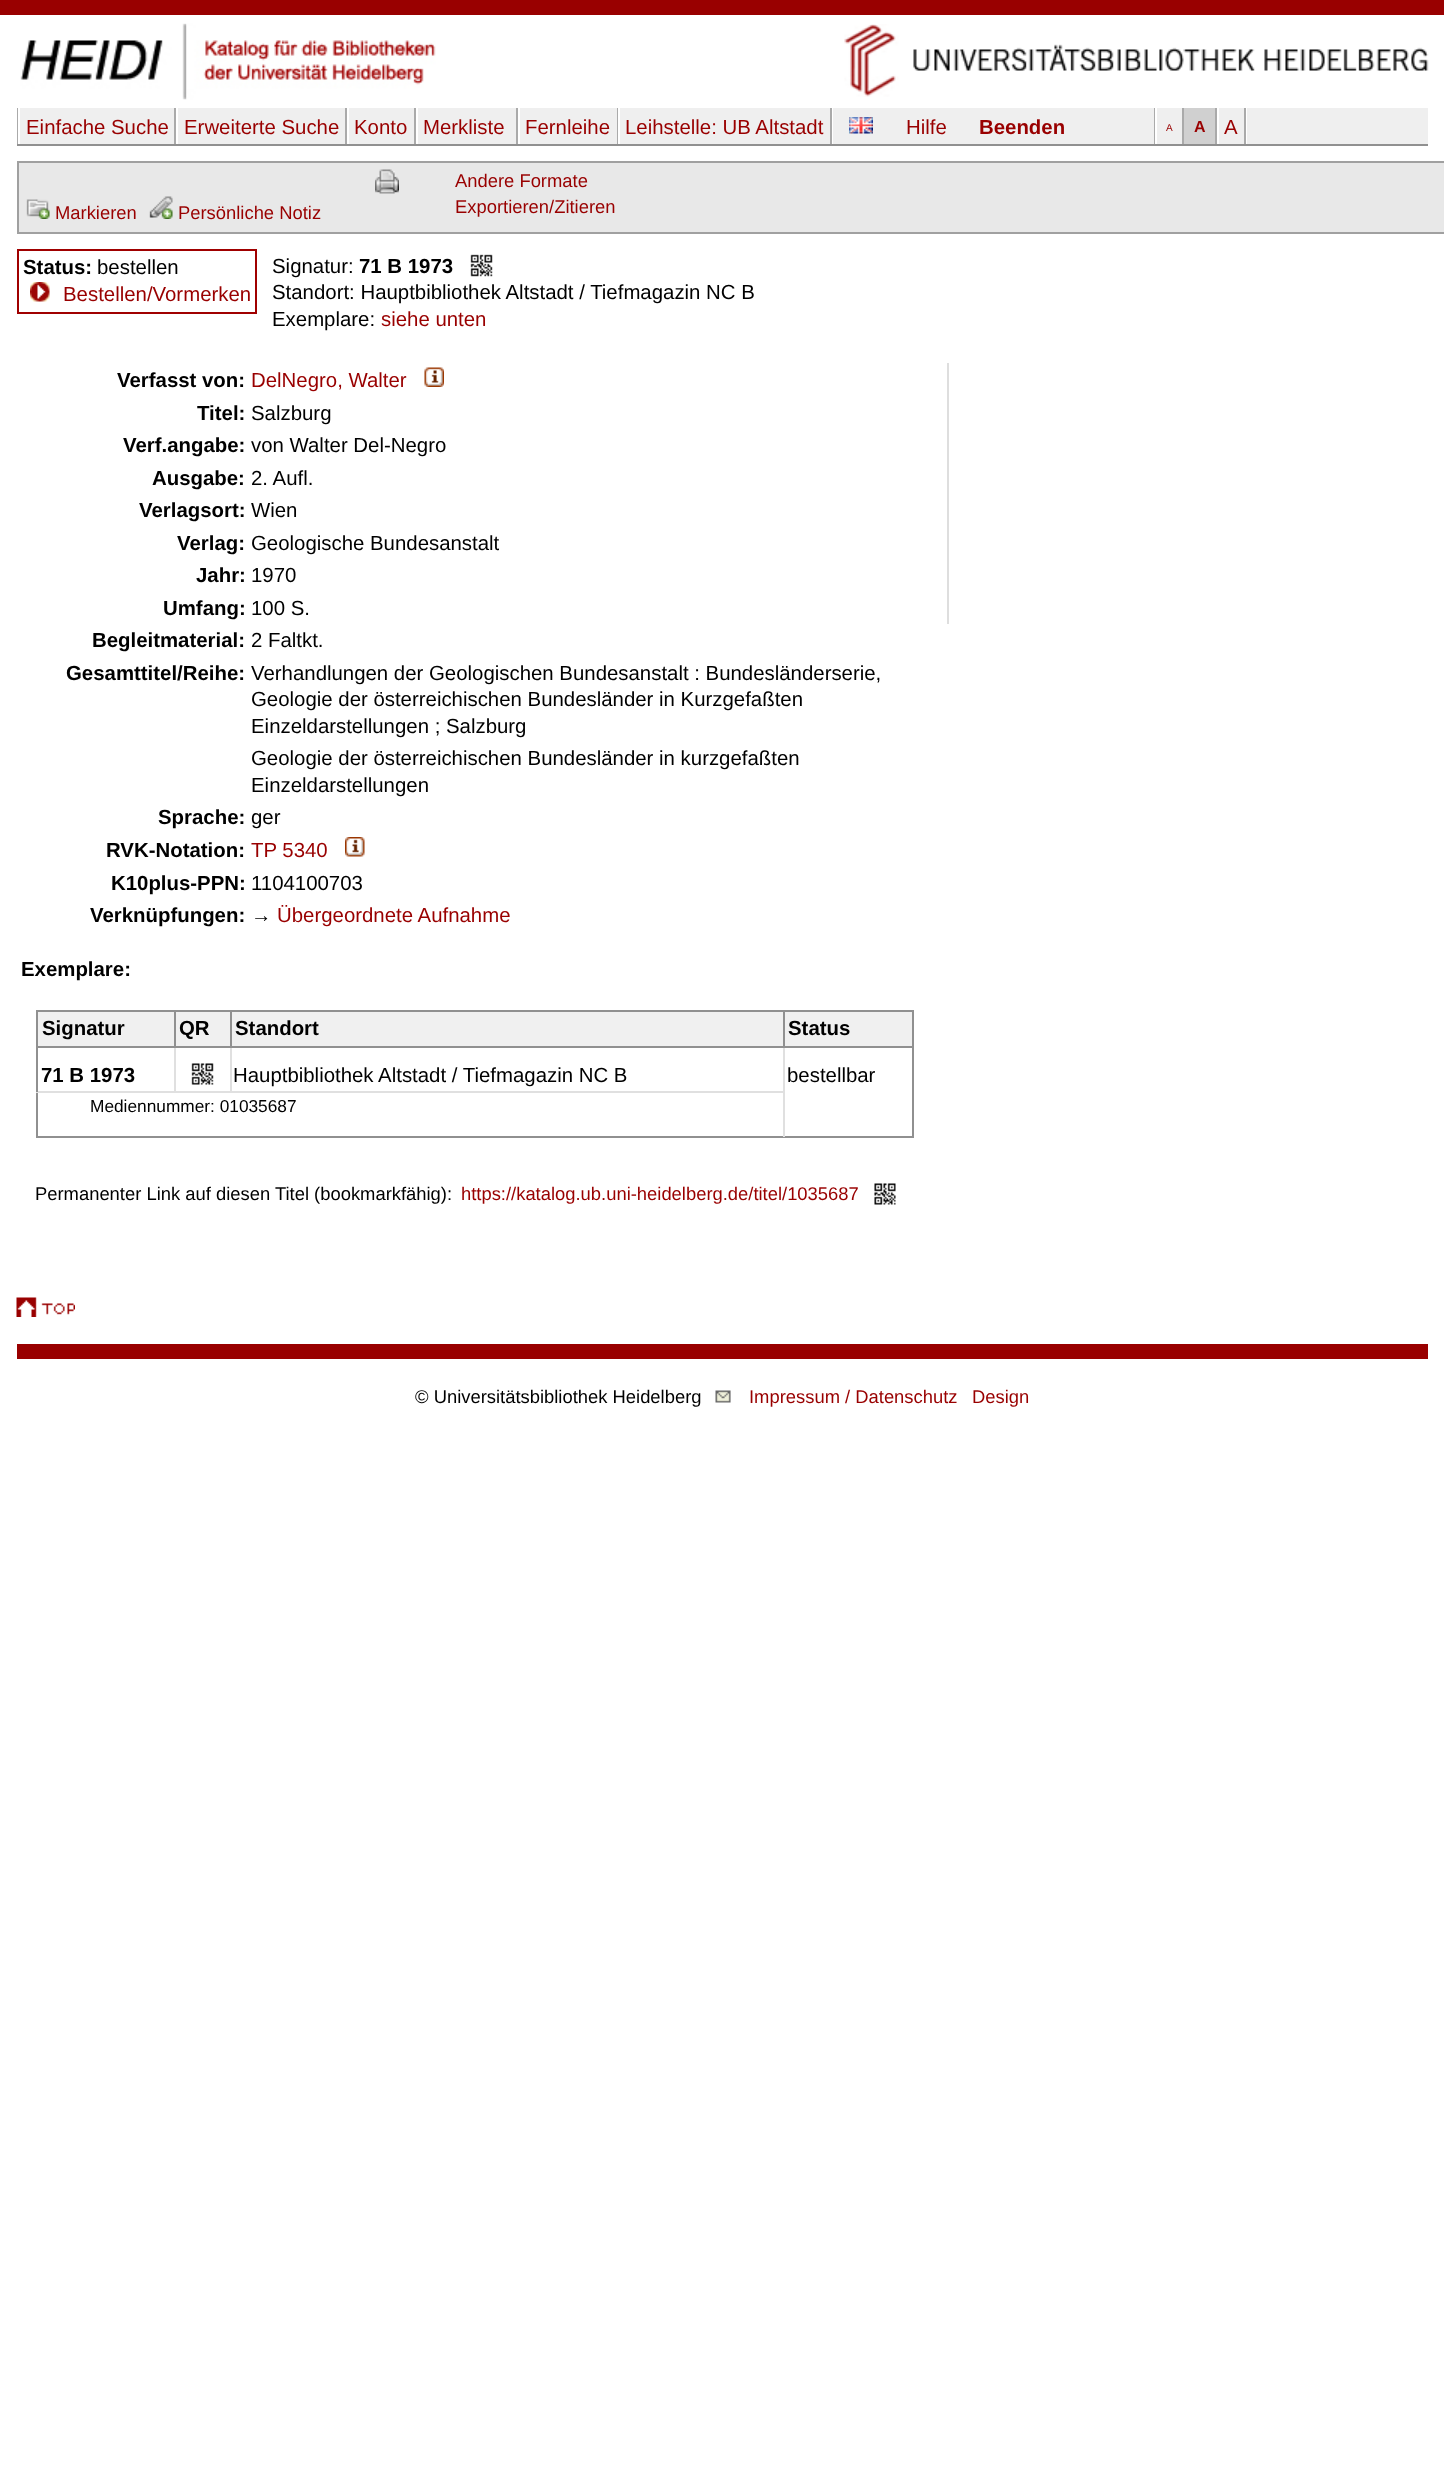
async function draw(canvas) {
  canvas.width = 1444
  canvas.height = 2482
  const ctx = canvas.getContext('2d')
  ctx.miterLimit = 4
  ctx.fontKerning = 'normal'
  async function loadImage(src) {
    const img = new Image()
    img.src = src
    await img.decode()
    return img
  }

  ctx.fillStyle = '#fff'
  ctx.fillRect(0, 0, 1444, 2482)
  ctx.fillStyle = '#900'
  ctx.fillRect(0, 0, 1444, 15)
  ctx.drawImage(await loadImage('image0.png'), 20, 23, 416, 77)
  ctx.drawImage(await loadImage('image1.png'), 844, 24, 585, 73)
  ctx.fillStyle = '#efefef'
  ctx.fillRect(20, 108, 1408, 36)
  ctx.fillStyle = '#909090'
  ctx.fillRect(17, 144, 1411, 2)
  ctx.fillStyle = '#fff'
  ctx.fillRect(832, 108, 1, 36)
  ctx.fillStyle = '#aaa'
  ctx.fillRect(17, 108, 1, 36)
  ctx.fillRect(174, 108, 2, 36)
  ctx.font = '20.4px Liberation Sans'
  ctx.fillStyle = '#900'
  ctx.fillText('Einfache Suche', 26, 134)
  ctx.fillStyle = '#aaa'
  ctx.fillRect(345, 108, 2, 36)
  ctx.fillStyle = '#fff'
  ctx.fillRect(176, 108, 2, 36)
  ctx.fillStyle = '#900'
  ctx.fillText('Erweiterte Suche', 184, 134)
  ctx.fillStyle = '#aaa'
  ctx.fillRect(414, 108, 2, 36)
  ctx.fillStyle = '#fff'
  ctx.fillRect(347, 108, 2, 36)
  ctx.fillStyle = '#900'
  ctx.fillText('Konto', 354, 134)
  ctx.fillStyle = '#aaa'
  ctx.fillRect(516, 108, 2, 36)
  ctx.fillStyle = '#fff'
  ctx.fillRect(416, 108, 2, 36)
  ctx.fillStyle = '#900'
  ctx.fillText('Merkliste', 423, 134)
  ctx.fillStyle = '#aaa'
  ctx.fillRect(617, 108, 1, 36)
  ctx.fillStyle = '#fff'
  ctx.fillRect(518, 108, 2, 36)
  ctx.fillStyle = '#900'
  ctx.fillText('Fernleihe', 525, 134)
  ctx.fillStyle = '#aaa'
  ctx.fillRect(830, 108, 2, 36)
  ctx.fillStyle = '#fff'
  ctx.fillRect(618, 108, 2, 36)
  ctx.fillStyle = '#900'
  ctx.fillText('Leihstelle: UB Altstadt', 625, 134)
  ctx.drawImage(await loadImage('image2.png'), 849, 117, 24, 17)
  ctx.fillText('Hilfe', 906, 134)
  ctx.font = 'bold 20.4px Liberation Sans'
  ctx.fillText('Beenden', 979, 134)
  ctx.fillStyle = '#fff'
  ctx.fillRect(1246, 108, 1, 36)
  ctx.fillStyle = '#aaa'
  ctx.fillRect(1154, 108, 1, 36)
  ctx.fillRect(1182, 108, 2, 36)
  ctx.fillStyle = '#fff'
  ctx.fillRect(1155, 108, 2, 36)
  ctx.font = '10px Liberation Sans'
  ctx.fillStyle = '#900'
  ctx.fillText('A', 1166, 131)
  ctx.fillStyle = '#d0d0d0'
  ctx.fillRect(1184, 108, 31, 36)
  ctx.fillStyle = '#aaa'
  ctx.fillRect(1215, 108, 2, 36)
  ctx.font = 'bold 16px Liberation Sans'
  ctx.fillStyle = '#900'
  ctx.fillText('A', 1194, 132)
  ctx.fillStyle = '#aaa'
  ctx.fillRect(1244, 108, 2, 36)
  ctx.fillStyle = '#fff'
  ctx.fillRect(1217, 108, 2, 36)
  ctx.font = '20.4px Liberation Sans'
  ctx.fillStyle = '#900'
  ctx.fillText('A', 1224, 134)
  ctx.fillStyle = '#e8e8e8'
  ctx.beginPath()
  ctx.rect(18, 162, 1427, 71)
  ctx.fill()
  ctx.strokeStyle = '#a0a0a0'
  ctx.lineWidth = 2
  ctx.stroke()
  ctx.drawImage(await loadImage('image3.png'), 26, 199, 24, 20)
  ctx.font = '18.4px Liberation Sans'
  ctx.fillStyle = '#900'
  ctx.fillText('Markieren', 55, 219)
  ctx.drawImage(await loadImage('image4.png'), 149, 196, 24, 23)
  ctx.fillText('Persönliche Notiz', 178, 219)
  ctx.drawImage(await loadImage('image5.png'), 375, 169, 24, 25)
  ctx.fillText('Andere Formate', 455, 187)
  ctx.fillText('Exportieren/Zitieren', 455, 213)
  ctx.strokeStyle = '#a00000'
  ctx.strokeRect(18, 250, 238, 63)
  ctx.font = 'bold 20.4px Liberation Sans'
  ctx.fillStyle = '#000'
  ctx.fillText('Status:', 23, 274)
  ctx.font = '20.4px Liberation Sans'
  ctx.fillText('bestellen', 97, 274)
  ctx.drawImage(await loadImage('image6.png'), 30, 282, 20, 20)
  ctx.fillStyle = '#900'
  ctx.fillText('Bestellen/Vormerken', 63, 301)
  ctx.fillStyle = '#000'
  ctx.fillText('Signatur:', 272, 273)
  ctx.font = 'bold 20.4px Liberation Sans'
  ctx.fillText('71 B 1973', 359, 273)
  ctx.drawImage(await loadImage('image7.png'), 470, 254, 23, 23)
  ctx.font = '20.4px Liberation Sans'
  ctx.fillText('Standort: Hauptbibliothek Altstadt / Tiefmagazin NC B', 272, 299)
  ctx.fillText('Exemplare:', 272, 326)
  ctx.fillStyle = '#900'
  ctx.fillText('siehe unten', 381, 326)
  ctx.font = 'bold 20.4px Liberation Sans'
  ctx.fillStyle = '#000'
  ctx.fillText('Verfasst von:', 117, 387)
  ctx.font = '20.4px Liberation Sans'
  ctx.fillStyle = '#900'
  ctx.fillText('DelNegro, Walter', 251, 387)
  ctx.drawImage(await loadImage('image8.png'), 424, 367, 20, 20)
  ctx.font = 'bold 20.4px Liberation Sans'
  ctx.fillStyle = '#000'
  ctx.fillText('Titel:', 197, 420)
  ctx.font = '20.4px Liberation Sans'
  ctx.fillText('Salzburg', 251, 420)
  ctx.font = 'bold 20.4px Liberation Sans'
  ctx.fillText('Verf.angabe:', 123, 452)
  ctx.font = '20.4px Liberation Sans'
  ctx.fillText('von Walter Del-Negro', 251, 452)
  ctx.font = 'bold 20.4px Liberation Sans'
  ctx.fillText('Ausgabe:', 152, 485)
  ctx.font = '20.4px Liberation Sans'
  ctx.fillText('2. Aufl.', 251, 485)
  ctx.font = 'bold 20.4px Liberation Sans'
  ctx.fillText('Verlagsort:', 139, 517)
  ctx.font = '20.4px Liberation Sans'
  ctx.fillText('Wien', 251, 517)
  ctx.font = 'bold 20.4px Liberation Sans'
  ctx.fillText('Verlag:', 177, 550)
  ctx.font = '20.4px Liberation Sans'
  ctx.fillText('Geologische Bundesanstalt', 251, 550)
  ctx.font = 'bold 20.4px Liberation Sans'
  ctx.fillText('Jahr:', 196, 582)
  ctx.font = '20.4px Liberation Sans'
  ctx.fillText('1970', 251, 582)
  ctx.font = 'bold 20.4px Liberation Sans'
  ctx.fillText('Umfang:', 163, 615)
  ctx.font = '20.4px Liberation Sans'
  ctx.fillText('100 S.', 251, 615)
  ctx.font = 'bold 20.4px Liberation Sans'
  ctx.fillText('Begleitmaterial:', 92, 647)
  ctx.font = '20.4px Liberation Sans'
  ctx.fillText('2 Faltkt.', 251, 647)
  ctx.font = 'bold 20.4px Liberation Sans'
  ctx.fillText('Gesamttitel/Reihe:', 66, 680)
  ctx.font = '20.4px Liberation Sans'
  ctx.fillText('Verhandlungen der Geologischen Bundesanstalt : Bundesländerserie,', 251, 680)
  ctx.fillText('Geologie der österreichischen Bundesländer in Kurzgefaßten', 251, 706)
  ctx.fillText('Einzeldarstellungen ; Salzburg', 251, 733)
  ctx.fillText('Geologie der österreichischen Bundesländer in kurzgefaßten', 251, 765)
  ctx.fillText('Einzeldarstellungen', 251, 792)
  ctx.font = 'bold 20.4px Liberation Sans'
  ctx.fillText('Sprache:', 158, 824)
  ctx.font = '20.4px Liberation Sans'
  ctx.fillText('ger', 251, 824)
  ctx.font = 'bold 20.4px Liberation Sans'
  ctx.fillText('RVK-Notation:', 106, 857)
  ctx.font = '20.4px Liberation Sans'
  ctx.fillStyle = '#900'
  ctx.fillText('TP 5340', 251, 857)
  ctx.drawImage(await loadImage('image9.png'), 345, 837, 20, 20)
  ctx.font = 'bold 20.4px Liberation Sans'
  ctx.fillStyle = '#000'
  ctx.fillText('K10plus-PPN:', 111, 890)
  ctx.font = '20.4px Liberation Sans'
  ctx.fillText('1104100703', 251, 890)
  ctx.font = 'bold 20.4px Liberation Sans'
  ctx.fillText('Verknüpfungen:', 90, 922)
  ctx.font = '20.4px Liberation Sans'
  ctx.fillText('→', 251, 922)
  ctx.fillStyle = '#900'
  ctx.fillText('Übergeordnete Aufnahme', 277, 922)
  ctx.fillStyle = '#dedede'
  ctx.fillRect(947, 363, 2, 261)
  ctx.font = 'bold 20.4px Liberation Sans'
  ctx.fillStyle = '#000'
  ctx.fillText('Exemplare:', 21, 976)
  ctx.fillStyle = '#909090'
  ctx.fillRect(36, 1010, 878, 2)
  ctx.fillRect(912, 1010, 2, 36)
  ctx.fillRect(36, 1136, 878, 2)
  ctx.fillRect(36, 1010, 2, 36)
  ctx.fillStyle = '#f0f0f0'
  ctx.fillRect(38, 1012, 874, 34)
  ctx.fillStyle = '#909090'
  ctx.fillRect(912, 1046, 2, 91)
  ctx.fillStyle = '#e0e0e0'
  ctx.fillRect(176, 1091, 609, 2)
  ctx.fillRect(783, 1046, 2, 91)
  ctx.fillStyle = '#909090'
  ctx.fillRect(783, 1046, 131, 2)
  ctx.fillRect(783, 1010, 2, 37)
  ctx.fillStyle = '#e0e0e0'
  ctx.fillRect(230, 1046, 2, 46)
  ctx.fillStyle = '#909090'
  ctx.fillRect(230, 1046, 555, 2)
  ctx.fillRect(230, 1010, 2, 37)
  ctx.fillStyle = '#e0e0e0'
  ctx.fillRect(174, 1046, 2, 46)
  ctx.fillStyle = '#909090'
  ctx.fillRect(174, 1046, 57, 2)
  ctx.fillRect(174, 1010, 2, 37)
  ctx.fillRect(36, 1091, 2, 46)
  ctx.fillStyle = '#e0e0e0'
  ctx.fillRect(36, 1091, 140, 2)
  ctx.fillStyle = '#909090'
  ctx.fillRect(36, 1046, 2, 46)
  ctx.fillRect(36, 1046, 140, 2)
  ctx.fillStyle = '#000'
  ctx.fillText('Signatur', 42, 1035)
  ctx.fillText('QR', 179, 1035)
  ctx.fillText('Standort', 235, 1035)
  ctx.fillText('Status', 788, 1035)
  ctx.fillText('71 B 1973', 41, 1082)
  ctx.drawImage(await loadImage('image10.png'), 191, 1063, 23, 22)
  ctx.font = '20.4px Liberation Sans'
  ctx.fillText('Hauptbibliothek Altstadt / Tiefmagazin NC B', 233, 1082)
  ctx.fillText('bestellbar', 787, 1082)
  ctx.font = '17.3px Liberation Sans'
  ctx.fillText('Mediennummer: 01035687', 90, 1112)
  ctx.font = '18.4px Liberation Sans'
  ctx.fillText('Permanenter Link auf diesen Titel (bookmarkfähig):', 35, 1200)
  ctx.fillStyle = '#900'
  ctx.fillText('https://katalog.ub.uni-heidelberg.de/titel/1035687', 461, 1200)
  ctx.drawImage(await loadImage('image11.png'), 874, 1183, 22, 22)
  ctx.drawImage(await loadImage('image12.png'), 16, 1297, 59, 20)
  ctx.fillRect(17, 1344, 1411, 15)
  ctx.fillStyle = '#000'
  ctx.fillText('© Universitätsbibliothek Heidelberg', 415, 1403)
  ctx.drawImage(await loadImage('image13.png'), 715, 1390, 16, 13)
  ctx.fillStyle = '#900'
  ctx.fillText('Impressum / Datenschutz', 749, 1403)
  ctx.fillText('Design', 972, 1403)
}

draw(document.querySelector('canvas'))
